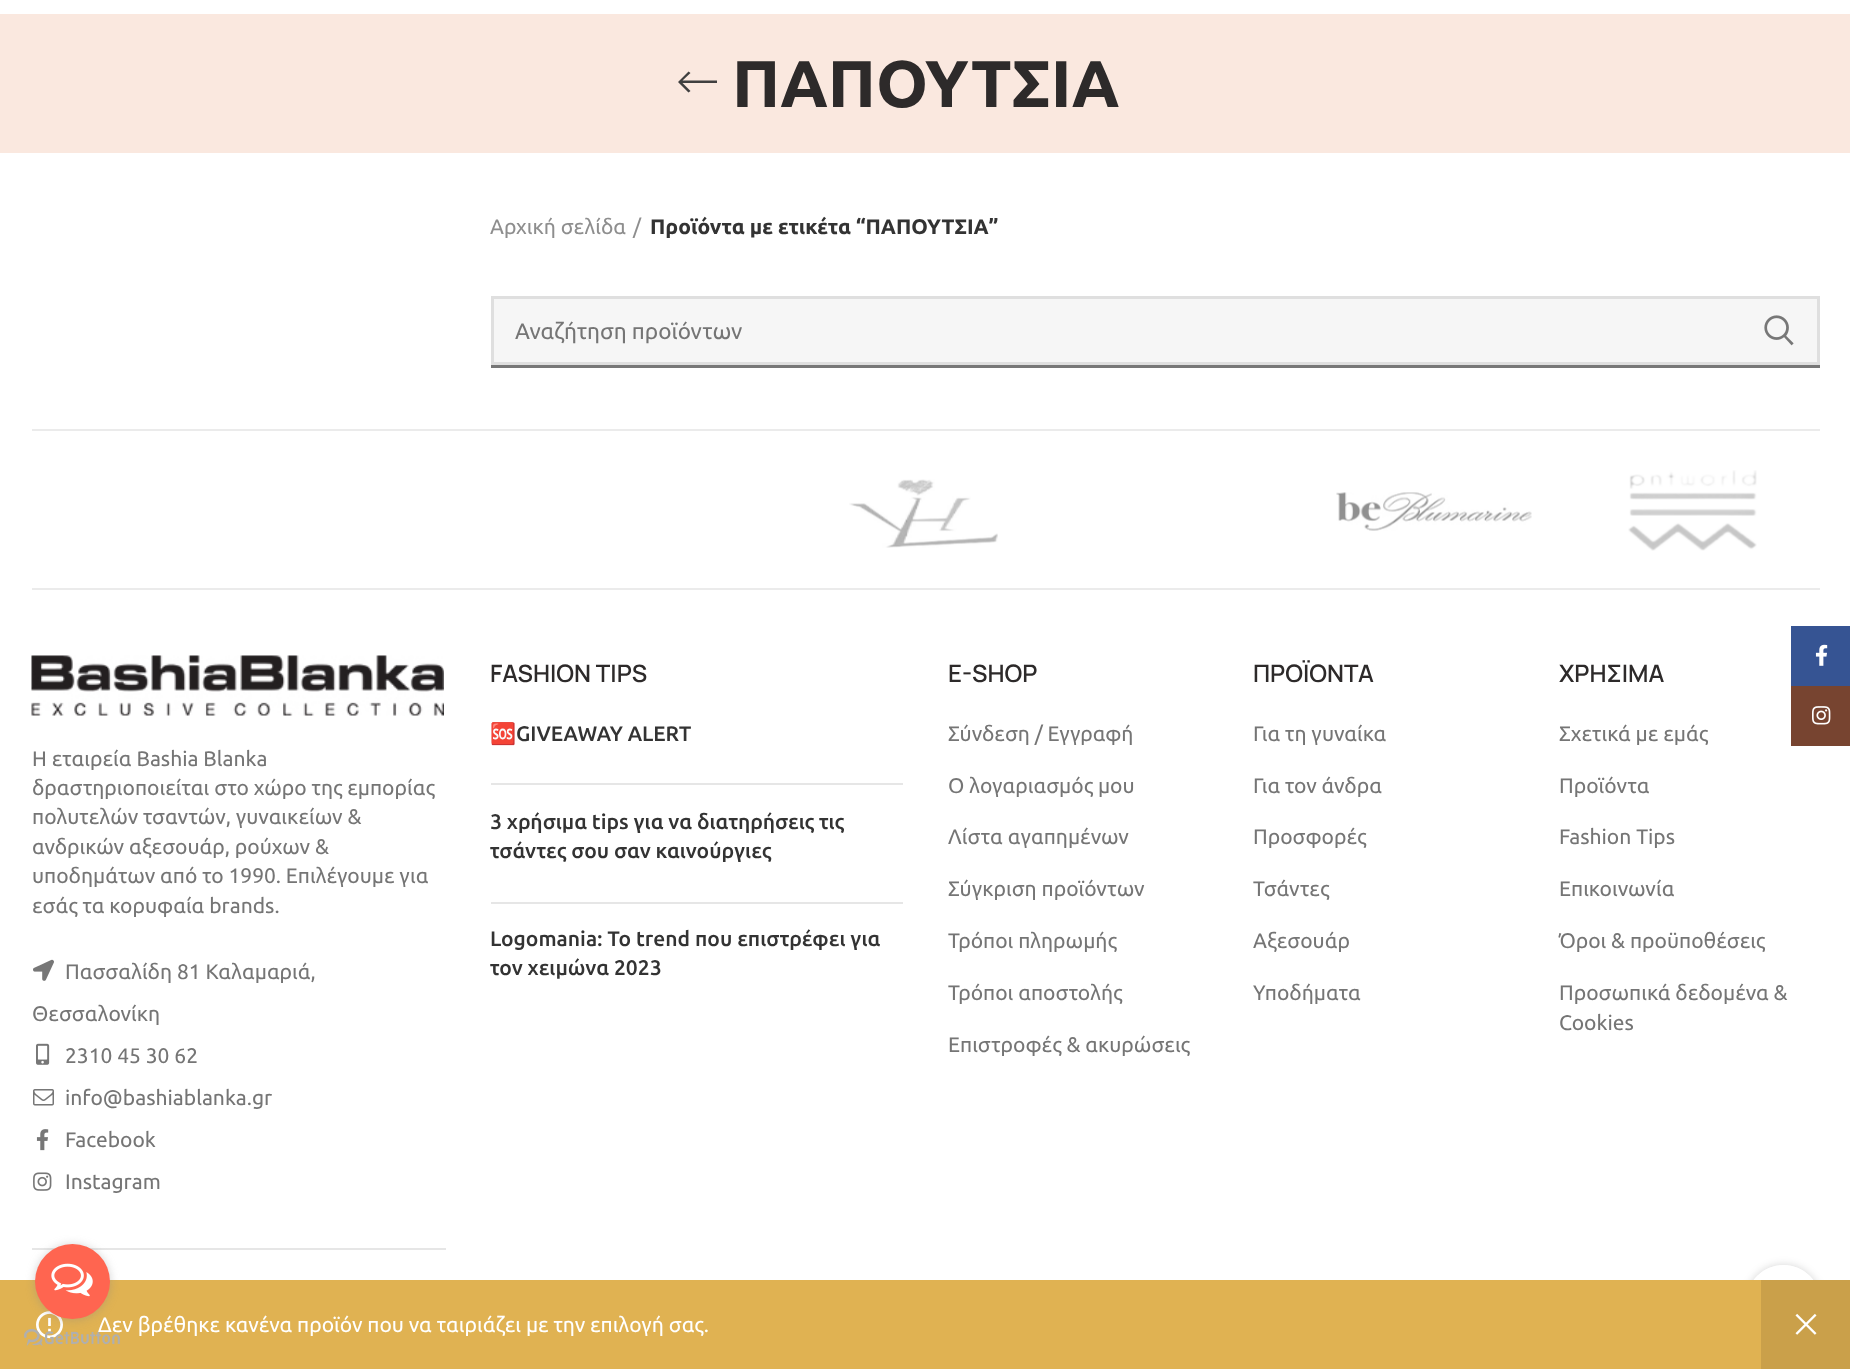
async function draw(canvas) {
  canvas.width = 1850
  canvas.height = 1369
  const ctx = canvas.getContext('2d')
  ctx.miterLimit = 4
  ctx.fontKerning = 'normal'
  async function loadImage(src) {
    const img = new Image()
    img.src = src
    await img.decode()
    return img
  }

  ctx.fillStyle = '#fff'
  ctx.fillRect(0, 0, 1850, 1369)
  ctx.fillStyle = '#fae8df'
  ctx.fillRect(0, 14, 1850, 139)
  ctx.fillStyle = '#3f3f3f'
  ctx.beginPath()
  ctx.moveTo(717, 80.5)
  ctx.lineTo(717, 83)
  ctx.lineTo(682.5, 83)
  ctx.lineTo(690.5, 91)
  ctx.lineTo(688.5, 92.5)
  ctx.lineTo(678, 82)
  ctx.lineTo(688.5, 71.5)
  ctx.lineTo(690.5, 73)
  ctx.lineTo(682.5, 80.5)
  ctx.closePath()
  ctx.fill()
  ctx.font = 'bold 66px Ubuntu'
  ctx.fillStyle = '#2d2a2a'
  ctx.fillText('ΠΑΠΟΥΤΣΙΑ', 732, 107)
  ctx.font = '21px Ubuntu'
  ctx.fillStyle = '#8e8e8e'
  ctx.fillText('Αρχική σελίδα', 490, 234)
  ctx.fillText('/', 633, 234)
  ctx.font = 'bold 21px Ubuntu'
  ctx.fillStyle = '#333'
  ctx.fillText('Προϊόντα με ετικέτα “ΠΑΠΟΥΤΣΙΑ”', 650, 234)
  ctx.fillStyle = '#777'
  ctx.fillRect(491, 365, 1329, 3)
  ctx.fillStyle = '#f6f6f6'
  ctx.beginPath()
  ctx.rect(492.5, 297.5, 1326, 66)
  ctx.fill()
  ctx.strokeStyle = '#dfdfdf'
  ctx.lineWidth = 3
  ctx.stroke()
  ctx.font = '22.5px Ubuntu'
  ctx.fillStyle = '#757575'
  ctx.fillText('Αναζήτηση προϊόντων', 515, 339)
  ctx.drawImage(await loadImage('image0.png'), 1764, 315, 30, 31)
  ctx.save()
  ctx.beginPath()
  ctx.moveTo(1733, 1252)
  ctx.lineTo(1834, 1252)
  ctx.lineTo(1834, 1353)
  ctx.lineTo(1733, 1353)
  ctx.closePath()
  ctx.moveTo(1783.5, 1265)
  ctx.bezierCurveTo(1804, 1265, 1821, 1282, 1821, 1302.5)
  ctx.bezierCurveTo(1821, 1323, 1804, 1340, 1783.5, 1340)
  ctx.bezierCurveTo(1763, 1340, 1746, 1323, 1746, 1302.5)
  ctx.bezierCurveTo(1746, 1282, 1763, 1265, 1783.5, 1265)
  ctx.closePath()
  ctx.clip('evenodd')
  ctx.fillStyle = '#0000002b'
  ctx.filter = 'blur(4px)'
  ctx.beginPath()
  ctx.roundRect(1746, 1265, 75, 75, 37.5)
  ctx.fill()
  ctx.filter = 'none'
  ctx.restore()
  ctx.fillStyle = '#ffffffe6'
  ctx.beginPath()
  ctx.arc(1783.5, 1302.5, 37.5, 0, 2 * Math.PI)
  ctx.fill()
  ctx.fillStyle = '#e0b252'
  ctx.fillRect(0, 1280, 1761, 89)
  ctx.drawImage(await loadImage('image1.png'), 36, 1311, 27, 28)
  ctx.font = '21px Ubuntu'
  ctx.fillStyle = '#fff'
  ctx.fillText('Δεν βρέθηκε κανένα προϊόν που να ταιριάζει με την επιλογή σας.', 98, 1332)
  ctx.fillStyle = '#caa04a'
  ctx.fillRect(1761, 1280, 89, 89)
  ctx.drawImage(await loadImage('image2.png'), 1795, 1313, 22, 22)
  ctx.fillStyle = '#ebebeb'
  ctx.fillRect(32, 429, 1788, 2)
  ctx.drawImage(await loadImage('image3.png'), 849, 479, 149, 69)
  ctx.drawImage(await loadImage('image4.png'), 1336, 492, 196, 39)
  ctx.drawImage(await loadImage('image5.png'), 1628, 470, 129, 81)
  ctx.fillRect(32, 588, 1788, 2)
  ctx.fillStyle = '#e6e6e6'
  ctx.fillRect(32, 1248, 414, 2)
  ctx.drawImage(await loadImage('image6.png'), 31, 655, 413, 61)
  ctx.fillStyle = '#757575'
  ctx.fillText('H εταιρεία Bashia Blanka', 32, 766)
  ctx.fillText('δραστηριοποιείται στο χώρο της εμπορίας', 32, 795)
  ctx.fillText('πολυτελών τσαντών, γυναικείων &', 32, 824)
  ctx.fillText('ανδρικών αξεσουάρ, ρούχων &', 32, 854)
  ctx.fillText('υποδημάτων από το 1990. Επιλέγουμε για', 32, 883)
  ctx.fillText('εσάς τα κορυφαία brands.', 32, 913)
  ctx.drawImage(await loadImage('image7.png'), 33, 959, 21, 22)
  ctx.fillText('Πασσαλίδη 81 Καλαμαριά,', 65, 979)
  ctx.fillText('Θεσσαλονίκη', 32, 1021)
  ctx.drawImage(await loadImage('image8.png'), 36, 1043, 14, 22)
  ctx.fillText('2310 45 30 62', 65, 1063)
  ctx.drawImage(await loadImage('image9.png'), 33, 1089, 21, 17)
  ctx.fillText('info@bashiablanka.gr', 65, 1105)
  ctx.drawImage(await loadImage('image10.png'), 36, 1129, 13, 22)
  ctx.fillText('Facebook', 65, 1147)
  ctx.drawImage(await loadImage('image11.png'), 33, 1172, 19, 19)
  ctx.fillText('Instagram', 65, 1189)
  ctx.font = '600 24px Manrope'
  ctx.fillStyle = '#2d2a2a'
  ctx.fillText('FASHION TIPS', 490, 682)
  ctx.fillStyle = '#e6e6e6'
  ctx.fillRect(491, 783, 412, 2)
  ctx.font = '21px Noto Color Emoji'
  ctx.fillStyle = '#333'
  ctx.fillText('🆘', 490, 741)
  ctx.font = '500 21px Ubuntu'
  ctx.fillText('GIVEAWAY ALERT', 516, 741)
  ctx.fillStyle = '#e6e6e6'
  ctx.fillRect(491, 902, 412, 2)
  ctx.fillStyle = '#333'
  ctx.fillText('3 χρήσιμα tips για να διατηρήσεις τις', 490, 829)
  ctx.fillText('τσάντες σου σαν καινούργιες', 490, 858)
  ctx.fillText('Logomania: To trend που επιστρέφει για', 490, 946)
  ctx.fillText('τον χειμώνα 2023', 490, 975)
  ctx.font = '600 24px Manrope'
  ctx.fillStyle = '#2d2a2a'
  ctx.fillText('E-SHOP', 948, 682)
  ctx.font = '21px Ubuntu'
  ctx.fillStyle = '#757575'
  ctx.fillText('Σύνδεση / Εγγραφή', 948, 741)
  ctx.fillText('Ο λογαριασμός μου', 948, 793)
  ctx.fillText('Λίστα αγαπημένων', 948, 844)
  ctx.fillText('Σύγκριση προϊόντων', 948, 896)
  ctx.fillText('Τρόποι πληρωμής', 948, 948)
  ctx.fillText('Τρόποι αποστολής', 948, 1000)
  ctx.fillText('Επιστροφές & ακυρώσεις', 948, 1052)
  ctx.font = '600 24px Manrope'
  ctx.fillStyle = '#2d2a2a'
  ctx.fillText('ΠΡΟΪΟΝΤΑ', 1253, 682)
  ctx.font = '21px Ubuntu'
  ctx.fillStyle = '#757575'
  ctx.fillText('Για τη γυναίκα', 1253, 741)
  ctx.fillText('Για τον άνδρα', 1253, 793)
  ctx.fillText('Προσφορές', 1253, 844)
  ctx.fillText('Τσάντες', 1253, 896)
  ctx.fillText('Αξεσουάρ', 1253, 948)
  ctx.fillText('Υποδήματα', 1253, 1000)
  ctx.font = '600 24px Manrope'
  ctx.fillStyle = '#2d2a2a'
  ctx.fillText('ΧΡΗΣΙΜΑ', 1559, 682)
  ctx.font = '21px Ubuntu'
  ctx.fillStyle = '#757575'
  ctx.fillText('Σχετικά με εμάς', 1559, 741)
  ctx.fillText('Προϊόντα', 1559, 793)
  ctx.fillText('Fashion Tips', 1559, 844)
  ctx.fillText('Επικοινωνία', 1559, 896)
  ctx.fillText('Όροι & προϋποθέσεις', 1559, 948)
  ctx.fillText('Προσωπικά δεδομένα &', 1559, 1000)
  ctx.fillText('Cookies', 1559, 1030)
  ctx.fillStyle = '#365493'
  ctx.fillRect(1791, 626, 59, 60)
  ctx.drawImage(await loadImage('image12.png'), 1815, 644, 13, 22)
  ctx.fillStyle = '#774430'
  ctx.fillRect(1791, 686, 59, 60)
  ctx.drawImage(await loadImage('image13.png'), 1812, 706, 19, 19)
  ctx.drawImage(await loadImage('image15.png'), 24, 1329, 96, 17)
  ctx.fillStyle = '#88888866'
  ctx.filter = 'blur(5px)'
  ctx.beginPath()
  ctx.roundRect(35, 1245, 75, 75, 37.5)
  ctx.fill()
  ctx.filter = 'none'
  ctx.fillStyle = '#ff6550'
  ctx.beginPath()
  ctx.arc(72.5, 1281.5, 37.5, 0, 2 * Math.PI)
  ctx.fill()
  ctx.drawImage(await loadImage('image14.png'), 51, 1263, 42, 34)
}

draw(document.querySelector('canvas'))
